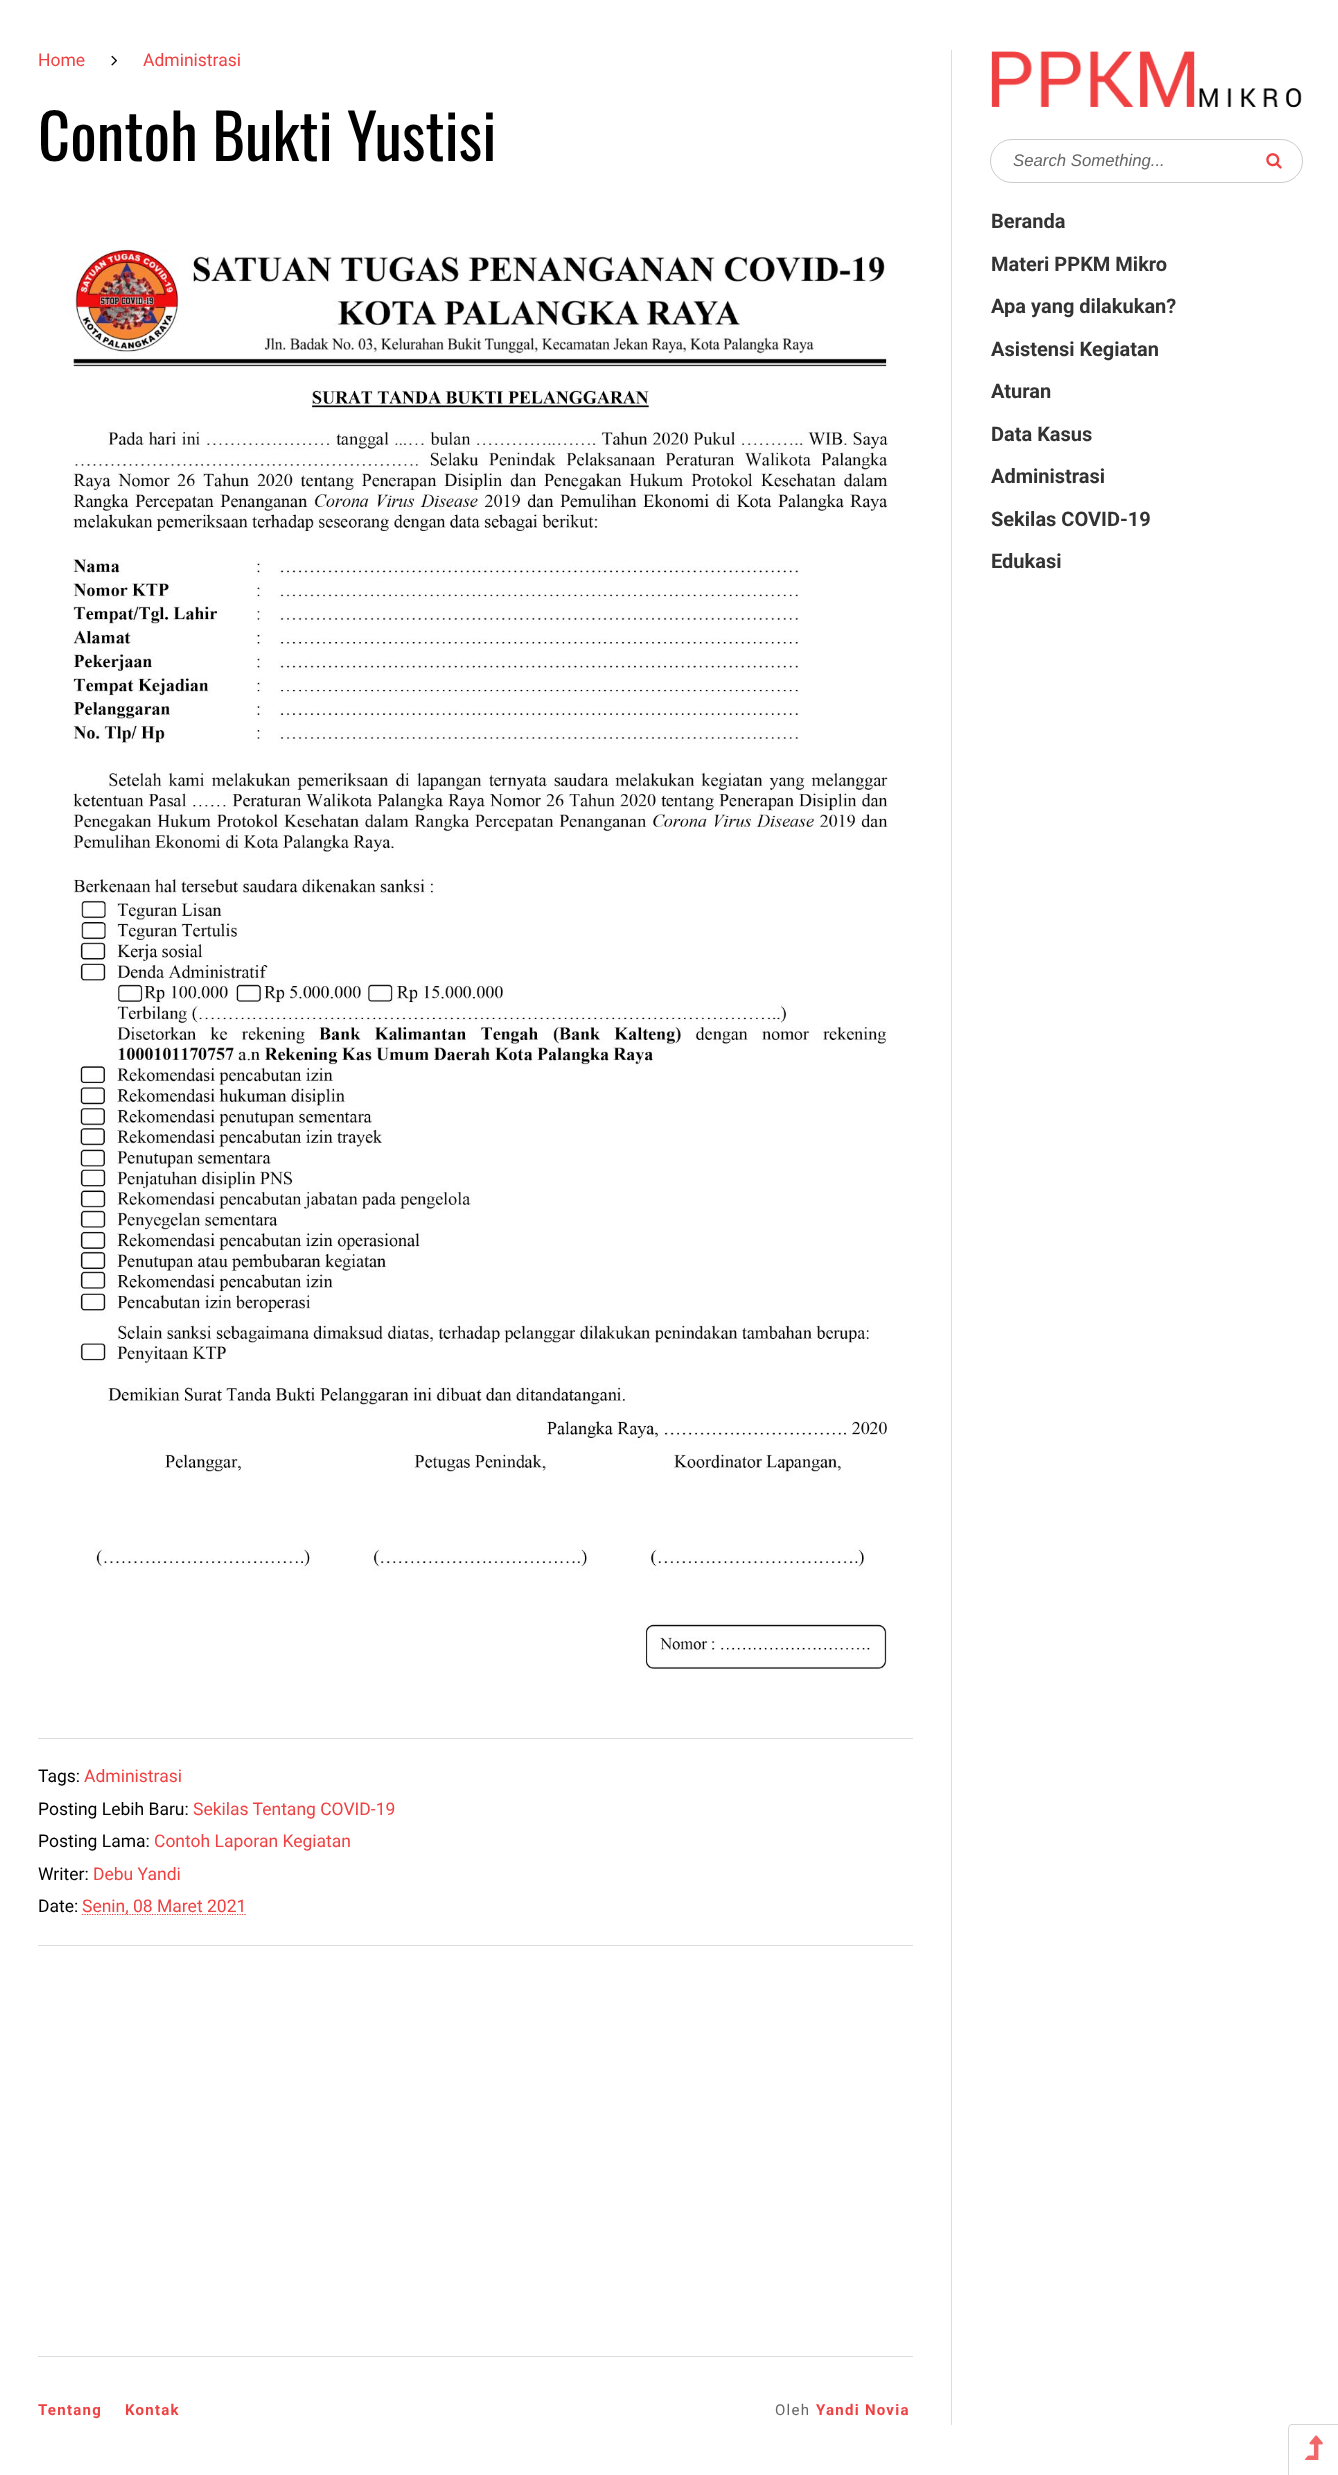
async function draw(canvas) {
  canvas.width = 1338
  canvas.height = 2475
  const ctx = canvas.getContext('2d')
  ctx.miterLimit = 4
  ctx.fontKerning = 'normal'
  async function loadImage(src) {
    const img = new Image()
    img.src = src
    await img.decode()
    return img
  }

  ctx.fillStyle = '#fff'
  ctx.fillRect(0, 0, 1338, 2475)
  ctx.font = '17.5px Roboto'
  ctx.fillStyle = '#ef4142'
  ctx.fillText('Home', 38, 66)
  ctx.drawImage(await loadImage('image0.png'), 111, 55, 6, 11)
  ctx.fillText('Administrasi', 143, 66)
  ctx.font = '62.5px Oswald'
  ctx.fillStyle = '#000'
  ctx.fillText('Contoh Bukti Yustisi', 38, 161)
  ctx.drawImage(await loadImage('image1.png'), 67, 250, 821, 1420)
  ctx.fillStyle = '#ddd'
  ctx.fillRect(38, 1738, 875, 1)
  ctx.fillRect(38, 1945, 875, 1)
  ctx.font = '17.5px Roboto'
  ctx.fillStyle = '#000'
  ctx.fillText('Tags:', 38, 1782)
  ctx.fillStyle = '#ef4142'
  ctx.fillText('Administrasi', 84, 1782)
  ctx.fillStyle = '#000'
  ctx.fillText('Posting Lebih Baru:', 38, 1815)
  ctx.fillStyle = '#ef4142'
  ctx.fillText('Sekilas Tentang COVID-19', 193, 1815)
  ctx.fillStyle = '#000'
  ctx.fillText('Posting Lama:', 38, 1847)
  ctx.fillStyle = '#ef4142'
  ctx.fillText('Contoh Laporan Kegiatan', 154, 1847)
  ctx.fillStyle = '#000'
  ctx.fillText('Writer:', 38, 1880)
  ctx.fillStyle = '#ef4142'
  ctx.fillText('Debu Yandi', 93, 1880)
  ctx.fillStyle = '#000'
  ctx.fillText('Date:', 38, 1912)
  ctx.beginPath()
  ctx.moveTo(82, 1914.5)
  ctx.lineTo(246.5, 1914.5)
  ctx.strokeStyle = '#ef4142'
  ctx.lineWidth = 1.2
  ctx.setLineDash([1.25, 1.25])
  ctx.stroke()
  ctx.fillStyle = '#ef4142'
  ctx.fillText('Senin, 08 Maret 2021', 82, 1912)
  ctx.fillStyle = '#ddd'
  ctx.fillRect(38, 2356, 875, 1)
  ctx.letterSpacing = '1.25px'
  ctx.font = 'bold 15px Roboto'
  ctx.fillStyle = '#ef4142'
  ctx.fillText('Tentang', 38, 2415)
  ctx.fillText('Kontak', 125, 2415)
  ctx.font = '15px Roboto'
  ctx.fillStyle = '#666'
  ctx.fillText('Oleh', 775, 2415)
  ctx.font = 'bold 15px Roboto'
  ctx.fillStyle = '#ef4142'
  ctx.fillText('Yandi Novia', 816, 2415)
  ctx.fillStyle = '#ddd'
  ctx.fillRect(951, 50, 1, 2375)
  ctx.drawImage(await loadImage('image2.png'), 991, 51, 311, 57)
  ctx.beginPath()
  ctx.roundRect(990.5, 139.5, 312, 43, 21.5)
  ctx.strokeStyle = '#ccc'
  ctx.lineWidth = 1
  ctx.setLineDash([])
  ctx.stroke()
  ctx.letterSpacing = '0px'
  ctx.font = 'italic 16.75px Liberation Sans'
  ctx.fillStyle = '#666'
  ctx.fillText('Search Something...', 1013, 166)
  ctx.drawImage(await loadImage('image3.png'), 1266, 153, 16, 16)
  ctx.font = 'bold 20px Roboto'
  ctx.fillStyle = '#333'
  ctx.fillText('Beranda', 991, 228)
  ctx.fillText('Materi PPKM Mikro', 991, 271)
  ctx.fillText('Apa yang dilakukan?', 991, 313)
  ctx.fillText('Asistensi Kegiatan', 991, 356)
  ctx.fillText('Aturan', 991, 398)
  ctx.fillText('Data Kasus', 991, 441)
  ctx.fillText('Administrasi', 991, 483)
  ctx.fillText('Sekilas COVID-19', 991, 526)
  ctx.fillText('Edukasi', 991, 568)
  ctx.fillStyle = '#d6d6d6'
  ctx.beginPath()
  ctx.moveTo(1292, 2424)
  ctx.lineTo(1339, 2424)
  ctx.lineTo(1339, 2475)
  ctx.lineTo(1288, 2475)
  ctx.lineTo(1288, 2429)
  ctx.bezierCurveTo(1288, 2426, 1290, 2424, 1292, 2424)
  ctx.closePath()
  ctx.moveTo(1292, 2425)
  ctx.lineTo(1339, 2425)
  ctx.lineTo(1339, 2475)
  ctx.lineTo(1289, 2475)
  ctx.lineTo(1289, 2429)
  ctx.bezierCurveTo(1289, 2427, 1290, 2425, 1292, 2425)
  ctx.closePath()
  ctx.fill('evenodd')
  ctx.drawImage(await loadImage('image4.png'), 1305, 2435, 18, 25)
}

draw(document.querySelector('canvas'))
